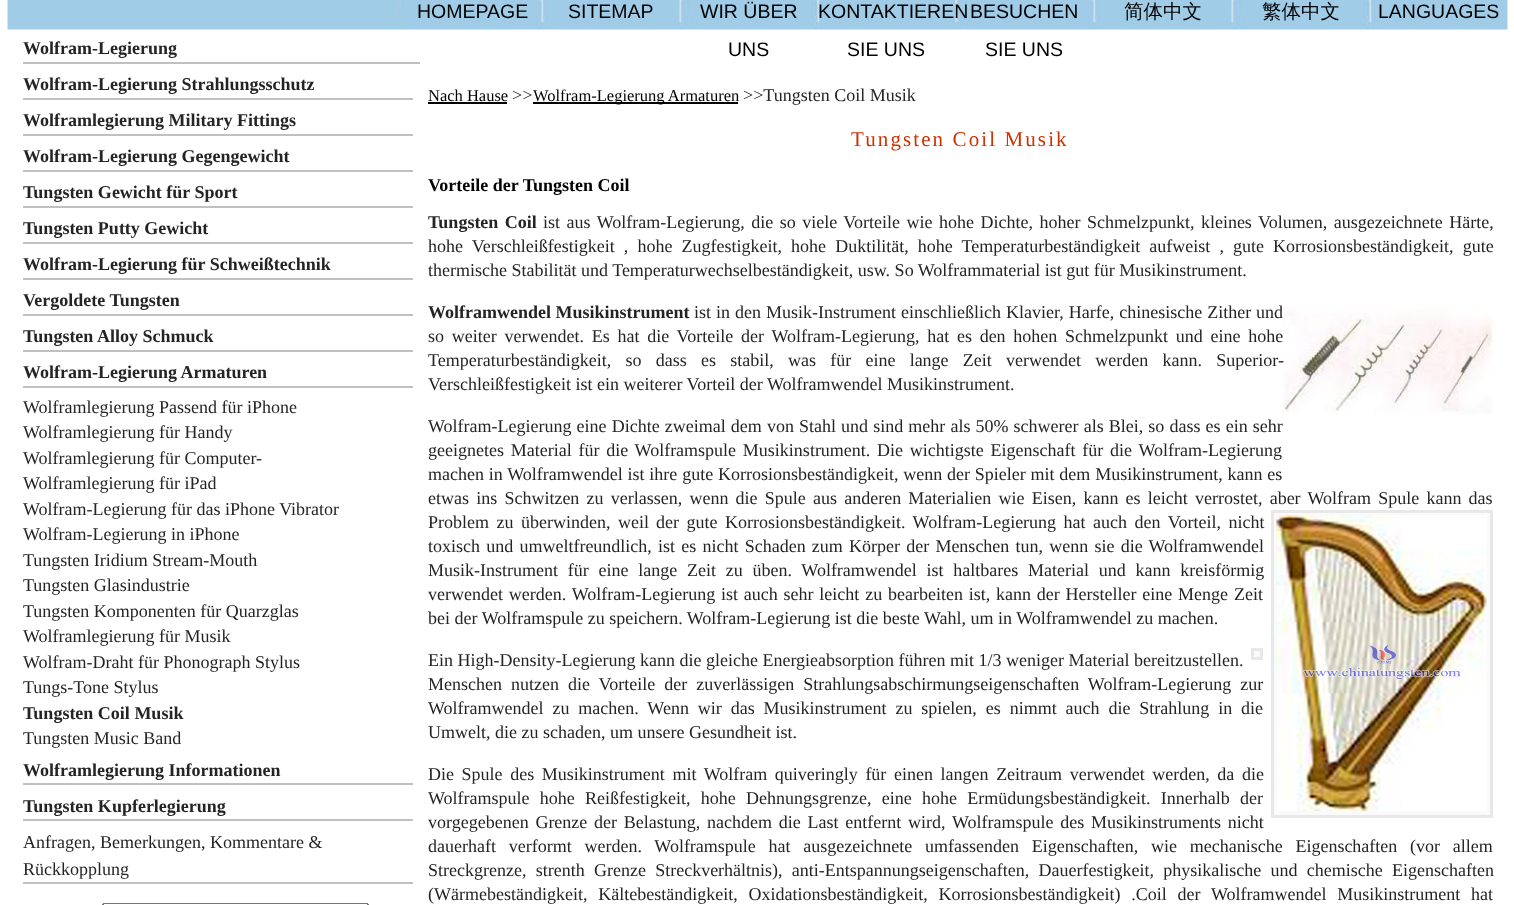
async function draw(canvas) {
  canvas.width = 1514
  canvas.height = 905
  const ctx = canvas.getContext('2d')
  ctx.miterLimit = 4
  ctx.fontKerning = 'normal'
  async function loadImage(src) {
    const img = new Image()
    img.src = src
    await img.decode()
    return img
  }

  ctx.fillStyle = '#fff'
  ctx.fillRect(0, 0, 1514, 905)
  ctx.drawImage(await loadImage('image0.png'), 7, 0, 1501, 30)
  ctx.font = '19.5px Liberation Sans'
  ctx.fillStyle = '#000'
  ctx.fillText('HOMEPAGE', 417, 18)
  ctx.fillText('SITEMAP', 568, 18)
  ctx.fillText('WIR ÜBER', 700, 18)
  ctx.fillText('UNS', 728, 56)
  ctx.fillText('KONTAKTIEREN', 818, 18)
  ctx.fillText('SIE UNS', 847, 56)
  ctx.fillText('BESUCHEN', 970, 18)
  ctx.fillText('SIE UNS', 985, 56)
  ctx.font = '500 19.5px WenQuanYi Zen Hei'
  ctx.fillText('简体中文', 1124, 18)
  ctx.fillText('繁体中文', 1262, 18)
  ctx.font = '19.5px Liberation Sans'
  ctx.fillText('LANGUAGES', 1378, 18)
  ctx.fillStyle = '#c0c0c0'
  ctx.fillRect(23, 62, 397, 2)
  ctx.font = 'bold 18px Liberation Serif'
  ctx.fillStyle = '#242424'
  ctx.fillText('Wolfram-Legierung', 23, 54)
  ctx.fillStyle = '#c0c0c0'
  ctx.fillRect(23, 98, 397, 2)
  ctx.fillStyle = '#242424'
  ctx.fillText('Wolfram-Legierung Strahlungsschutz', 23, 90)
  ctx.fillStyle = '#c0c0c0'
  ctx.fillRect(23, 134, 397, 2)
  ctx.fillStyle = '#242424'
  ctx.fillText('Wolframlegierung Military Fittings', 23, 126)
  ctx.fillStyle = '#c0c0c0'
  ctx.fillRect(23, 170, 397, 2)
  ctx.fillStyle = '#242424'
  ctx.fillText('Wolfram-Legierung Gegengewicht', 23, 162)
  ctx.fillStyle = '#c0c0c0'
  ctx.fillRect(23, 206, 397, 2)
  ctx.fillStyle = '#242424'
  ctx.fillText('Tungsten Gewicht für Sport', 23, 198)
  ctx.fillStyle = '#c0c0c0'
  ctx.fillRect(23, 242, 397, 2)
  ctx.fillStyle = '#242424'
  ctx.fillText('Tungsten Putty Gewicht', 23, 234)
  ctx.fillStyle = '#c0c0c0'
  ctx.fillRect(23, 278, 397, 2)
  ctx.fillStyle = '#242424'
  ctx.fillText('Wolfram-Legierung für Schweißtechnik', 23, 270)
  ctx.fillStyle = '#c0c0c0'
  ctx.fillRect(23, 314, 397, 2)
  ctx.fillStyle = '#242424'
  ctx.fillText('Vergoldete Tungsten', 23, 306)
  ctx.fillStyle = '#c0c0c0'
  ctx.fillRect(23, 350, 397, 2)
  ctx.fillStyle = '#242424'
  ctx.fillText('Tungsten Alloy Schmuck', 23, 342)
  ctx.fillStyle = '#c0c0c0'
  ctx.fillRect(23, 386, 397, 2)
  ctx.fillStyle = '#242424'
  ctx.fillText('Wolfram-Legierung Armaturen', 23, 378)
  ctx.font = '18px Liberation Serif'
  ctx.fillText('Wolframlegierung Passend für iPhone', 23, 413)
  ctx.fillText('Wolframlegierung für Handy', 23, 438)
  ctx.fillText('Wolframlegierung für Computer-', 23, 464)
  ctx.fillText('Wolframlegierung für iPad', 23, 489)
  ctx.fillText('Wolfram-Legierung für das iPhone Vibrator', 23, 515)
  ctx.fillText('Wolfram-Legierung in iPhone', 23, 540)
  ctx.fillText('Tungsten Iridium Stream-Mouth', 23, 566)
  ctx.fillText('Tungsten Glasindustrie', 23, 591)
  ctx.fillText('Tungsten Komponenten für Quarzglas', 23, 617)
  ctx.fillText('Wolframlegierung für Musik', 23, 642)
  ctx.fillText('Wolfram-Draht für Phonograph Stylus', 23, 668)
  ctx.fillText('Tungs-Tone Stylus', 23, 693)
  ctx.font = 'bold 18px Liberation Serif'
  ctx.fillText('Tungsten Coil Musik', 23, 719)
  ctx.font = '18px Liberation Serif'
  ctx.fillText('Tungsten Music Band', 23, 744)
  ctx.fillStyle = '#c0c0c0'
  ctx.fillRect(23, 783, 397, 2)
  ctx.font = 'bold 18px Liberation Serif'
  ctx.fillStyle = '#242424'
  ctx.fillText('Wolframlegierung Informationen', 23, 776)
  ctx.fillStyle = '#c0c0c0'
  ctx.fillRect(23, 819, 397, 2)
  ctx.fillStyle = '#242424'
  ctx.fillText('Tungsten Kupferlegierung', 23, 812)
  ctx.fillStyle = '#c0c0c0'
  ctx.fillRect(23, 882, 397, 2)
  ctx.font = '18px Liberation Serif'
  ctx.fillStyle = '#242424'
  ctx.fillText('Anfragen, Bemerkungen, Kommentare &', 23, 848)
  ctx.fillText('Rückkopplung', 23, 875)
  ctx.drawImage(await loadImage('image1.png'), 102, 903, 267, 2)
  ctx.fillStyle = '#fff'
  ctx.fillRect(413, 98, 7, 786)
  ctx.font = '16.5px Liberation Serif'
  ctx.fillStyle = '#000'
  ctx.fillText('Nach Hause', 428, 101)
  ctx.fillRect(428, 102, 79, 2)
  ctx.font = '18px Liberation Serif'
  ctx.fillStyle = '#242424'
  ctx.fillText('>>', 512, 101)
  ctx.fillStyle = '#000'
  ctx.fillRect(533, 102, 205, 2)
  ctx.font = '16.5px Liberation Serif'
  ctx.fillText('Wolfram-Legierung Armaturen', 533, 101)
  ctx.font = '18px Liberation Serif'
  ctx.fillStyle = '#242424'
  ctx.fillText('>>Tungsten Coil Musik', 743, 101)
  ctx.letterSpacing = '2.1px'
  ctx.font = '21px Liberation Serif'
  ctx.fillStyle = '#c30'
  ctx.fillText('Tungsten Coil Musik', 851, 146)
  ctx.letterSpacing = '0px'
  ctx.font = 'bold 18px Liberation Serif'
  ctx.fillStyle = '#000'
  ctx.fillText('Vorteile der Tungsten Coil', 428, 191)
  ctx.wordSpacing = '2px'
  ctx.fillStyle = '#242424'
  ctx.fillText('Tungsten Coil', 428, 228)
  ctx.font = '18px Liberation Serif'
  ctx.fillText('ist aus Wolfram-Legierung, die so viele Vorteile wie hohe Dichte, hoher Schmelzpunkt, kleines Volumen, ausgezeichnete Härte,', 543, 228)
  ctx.wordSpacing = '4.6px'
  ctx.fillText('hohe Verschleißfestigkeit , hohe Zugfestigkeit, hohe Duktilität, hohe Temperaturbeständigkeit aufweist , gute Korrosionsbeständigkeit, gute', 428, 252)
  ctx.wordSpacing = '0px'
  ctx.fillText('thermische Stabilität und Temperaturwechselbeständigkeit, usw. So Wolframmaterial ist gut für Musikinstrument.', 428, 276)
  ctx.font = 'bold 18px Liberation Serif'
  ctx.fillText('Wolframwendel Musikinstrument', 428, 318)
  ctx.drawImage(await loadImage('image2.png'), 1282, 308, 211, 107)
  ctx.wordSpacing = '0.5px'
  ctx.font = '18px Liberation Serif'
  ctx.fillText('ist in den Musik-Instrument einschließlich Klavier, Harfe, chinesische Zither und', 694, 318)
  ctx.wordSpacing = '3.25px'
  ctx.fillText('so weiter verwendet. Es hat die Vorteile der Wolfram-Legierung, hat es den hohen Schmelzpunkt und eine hohe', 428, 342)
  ctx.wordSpacing = '9.75px'
  ctx.fillText('Temperaturbeständigkeit, so dass es stabil, was für eine lange Zeit verwendet werden kann. Superior-', 428, 366)
  ctx.wordSpacing = '0px'
  ctx.fillText('Verschleißfestigkeit ist ein weiterer Vorteil der Wolframwendel Musikinstrument.', 428, 390)
  ctx.wordSpacing = '0.6px'
  ctx.fillText('Wolfram-Legierung eine Dichte zweimal dem von Stahl und sind mehr als 50% schwerer als Blei, so dass es ein sehr', 428, 432)
  ctx.wordSpacing = '2.25px'
  ctx.fillText('geeignetes Material für die Wolframspule Musikinstrument. Die wichtigste Eigenschaft für die Wolfram-Legierung', 428, 456)
  ctx.wordSpacing = '0.3px'
  ctx.fillText('machen in Wolframwendel ist ihre gute Korrosionsbeständigkeit, wenn der Spieler mit dem Musikinstrument, kann es', 428, 480)
  ctx.wordSpacing = '2.7px'
  ctx.fillText('etwas ins Schwitzen zu verlassen, wenn die Spule aus anderen Materialien wie Eisen, kann es leicht verrostet, aber Wolfram Spule kann das', 428, 504)
  ctx.wordSpacing = '3px'
  ctx.fillText('Problem zu überwinden, weil', 428, 528)
  ctx.fillText('der gute Korrosionsbeständigkeit. Wolfram-Legierung hat auch den Vorteil, nicht', 656, 528)
  ctx.fillStyle = '#fafafa'
  ctx.beginPath()
  ctx.rect(1272.5, 511.5, 219, 305)
  ctx.fill()
  ctx.strokeStyle = '#e8e8e8'
  ctx.lineWidth = 3
  ctx.stroke()
  ctx.drawImage(await loadImage('image3.png'), 1276, 515, 211, 296)
  ctx.wordSpacing = '1.7px'
  ctx.fillStyle = '#242424'
  ctx.fillText('toxisch und umweltfreundlich, ist es nicht Schaden zum Körper der Menschen tun, wenn sie die Wolframwendel', 428, 552)
  ctx.wordSpacing = '5.25px'
  ctx.fillText('Musik-Instrument für eine lange Zeit zu üben. Wolframwendel ist haltbares Material und kann kreisförmig', 428, 576)
  ctx.wordSpacing = '1.3px'
  ctx.fillText('verwendet werden. Wolfram-Legierung ist auch sehr leicht zu bearbeiten ist, kann der Hersteller eine Menge Zeit', 428, 600)
  ctx.wordSpacing = '0px'
  ctx.fillText('bei der Wolframspule zu speichern. Wolfram-Legierung ist die beste Wahl, um in Wolframwendel zu machen.', 428, 624)
  ctx.fillStyle = '#fafafa'
  ctx.beginPath()
  ctx.rect(1252.5, 649.5, 9, 9)
  ctx.fill()
  ctx.stroke()
  ctx.fillStyle = '#242424'
  ctx.fillText('Ein High-Density-Legierung kann die gleiche Energieabsorption führen mit 1/3 weniger Material bereitzustellen.', 428, 666)
  ctx.wordSpacing = '4.5px'
  ctx.fillText('Menschen nutzen die Vorteile der zuverlässigen Strahlungsabschirmungseigenschaften Wolfram-Legierung zur', 428, 690)
  ctx.wordSpacing = '4.4px'
  ctx.fillText('Wolframwendel zu machen. Wenn wir das Musikinstrument zu spielen, es nimmt auch die Strahlung in die', 428, 714)
  ctx.wordSpacing = '0px'
  ctx.fillText('Umwelt, die zu schaden, um unsere Gesundheit ist.', 428, 738)
  ctx.wordSpacing = '3.1px'
  ctx.fillText('Die Spule des Musikinstrument mit Wolfram quiveringly für einen langen Zeitraum verwendet werden, da die', 428, 780)
  ctx.wordSpacing = '5.75px'
  ctx.fillText('Wolframspule hohe Reißfestigkeit, hohe Dehnungsgrenze, eine hohe Ermüdungsbeständigkeit. Innerhalb der', 428, 804)
  ctx.wordSpacing = '2.25px'
  ctx.fillText('vorgegebenen Grenze der Belastung, nachdem die Last entfernt wird, Wolframspule des Musikinstruments nicht', 428, 828)
  ctx.wordSpacing = '8.25px'
  ctx.fillText('dauerhaft verformt werden. Wolframspule hat ausgezeichnete umfassenden Eigenschaften, wie mechanische Eigenschaften (vor allem', 428, 852)
  ctx.wordSpacing = '4.75px'
  ctx.fillText('Streckgrenze, strenth Grenze Streckverhältnis), anti-Entspannungseigenschaften, Dauerfestigkeit, physikalische und chemische Eigenschaften', 428, 876)
  ctx.wordSpacing = '6.25px'
  ctx.fillText('(Wärmebeständigkeit, Kältebeständigkeit, Oxidationsbeständigkeit, Korrosionsbeständigkeit) .Coil der Wolframwendel Musikinstrument hat', 428, 900)
}

draw(document.querySelector('canvas'))
